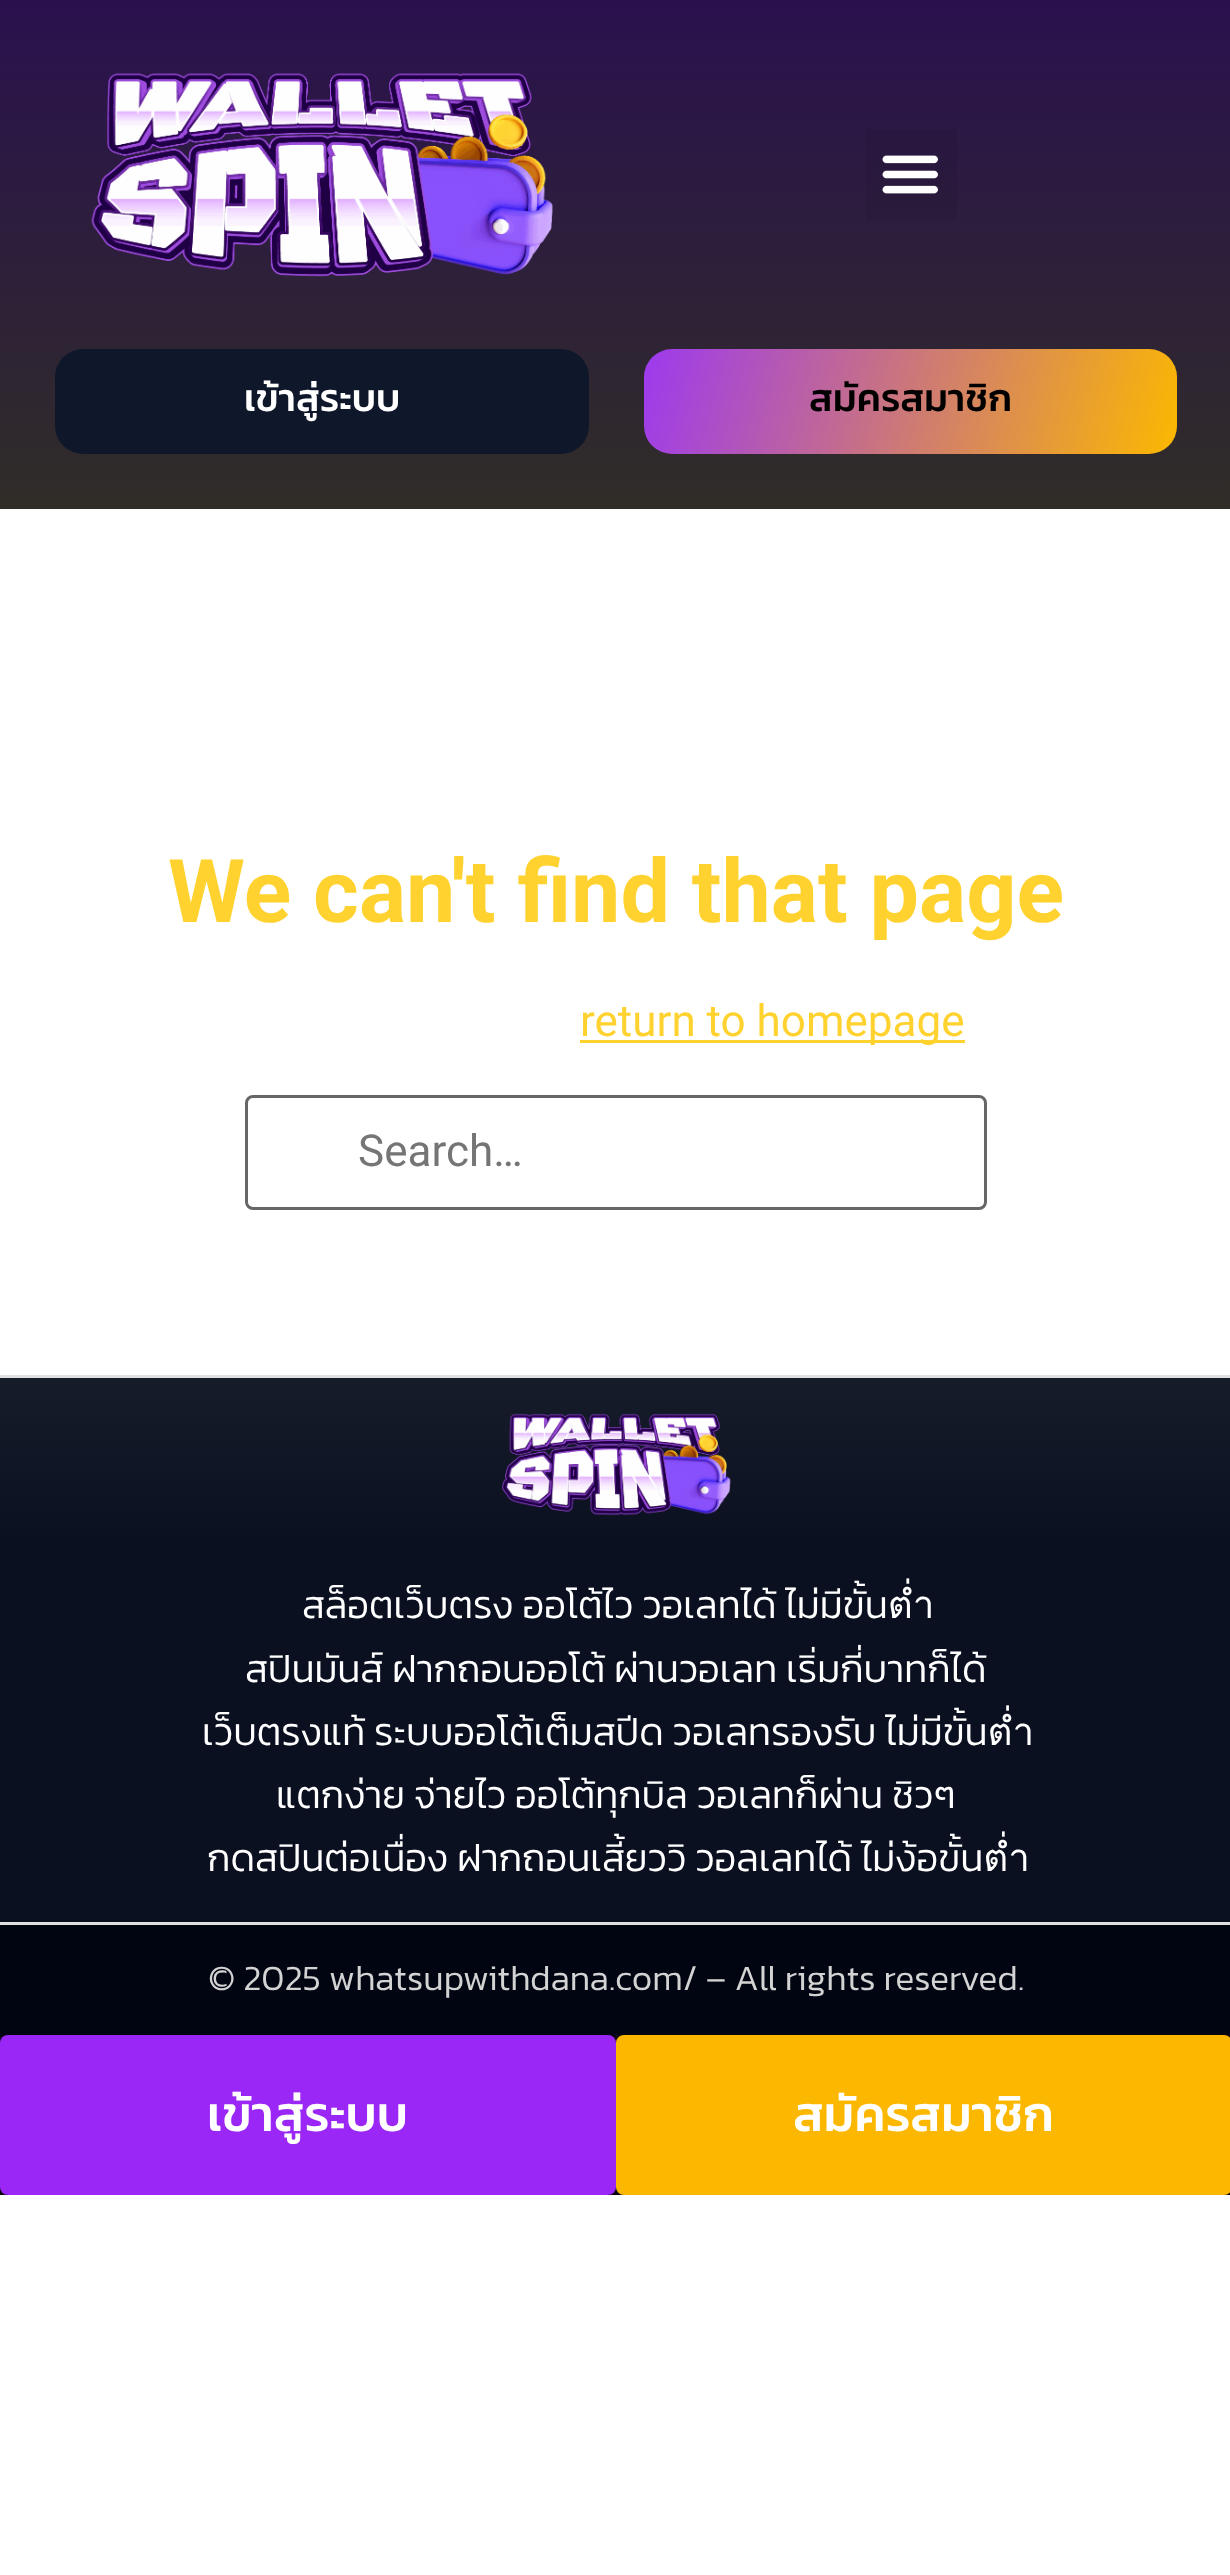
async function draw(canvas) {
  canvas.width = 1230
  canvas.height = 2575
  const ctx = canvas.getContext('2d')
  ctx.miterLimit = 4
  ctx.fontKerning = 'normal'
  async function loadImage(src) {
    const img = new Image()
    img.src = src
    await img.decode()
    return img
  }
  let gradient

  ctx.fillStyle = '#fff'
  ctx.fillRect(0, 0, 1230, 2575)
  gradient = ctx.createLinearGradient(616, 0, 616, 509)
  gradient.addColorStop(0, '#2a114e')
  gradient.addColorStop(1, '#302d28')
  ctx.fillStyle = gradient
  ctx.fillRect(0, 0, 1230, 509)
  ctx.drawImage(await loadImage('image0.png'), 91, 73, 462, 204)
  ctx.fillStyle = '#0000000d'
  ctx.fillRect(866, 129, 91, 91)
  ctx.drawImage(await loadImage('image1.png'), 882, 155, 56, 39)
  ctx.fillStyle = '#0f172b'
  ctx.beginPath()
  ctx.roundRect(55, 349, 534, 105, 28)
  ctx.fill()
  ctx.font = '500 38.5px Kanit'
  ctx.fillStyle = '#fff'
  ctx.fillText('เข้าสู่ระบบ', 244, 411)
  gradient = ctx.createLinearGradient(650, 327, 1171, 476)
  gradient.addColorStop(0, '#9d39ef')
  gradient.addColorStop(1, '#fcb800')
  ctx.fillStyle = gradient
  ctx.beginPath()
  ctx.roundRect(644, 349, 533, 105, 28)
  ctx.fill()
  ctx.fillStyle = '#000'
  ctx.fillText('สมัครสมาชิก', 809, 411)
  ctx.font = 'bold 88px Roboto'
  ctx.fillStyle = '#ffd230'
  ctx.fillText('We can\'t find that page', 168, 922)
  ctx.fillRect(580, 1040, 385, 3)
  ctx.font = '44px Roboto'
  ctx.fillText('return to homepage', 580, 1036)
  ctx.beginPath()
  ctx.roundRect(246.5, 1096.5, 739, 112, 6.5)
  ctx.strokeStyle = '#666'
  ctx.lineWidth = 3
  ctx.stroke()
  ctx.fillStyle = '#757575'
  ctx.fillText('Search…', 358, 1166)
  gradient = ctx.createLinearGradient(616, 1378, 616, 1922)
  gradient.addColorStop(0, '#171c2b')
  gradient.addColorStop(0.31, '#0b1020')
  ctx.fillStyle = gradient
  ctx.fillRect(0, 1378, 1230, 544)
  ctx.fillStyle = '#e0e0e0'
  ctx.fillRect(0, 1375, 1230, 3)
  ctx.drawImage(await loadImage('image2.png'), 501, 1413, 230, 103)
  ctx.font = '300 38.5px Kanit'
  ctx.fillStyle = '#fff'
  ctx.fillText('สล็อตเว็บตรง ออโต้ไว วอเลทได้ ไม่มีขั้นต่ำ', 302, 1618)
  ctx.fillText('สปินมันส์ ฝากถอนออโต้ ผ่านวอเลท เริ่มกี่บาทก็ได้', 245, 1682)
  ctx.fillText('เว็บตรงแท้ ระบบออโต้เต็มสปีด วอเลทรองรับ ไม่มีขั้นต่ำ', 202, 1745)
  ctx.fillText('แตกง่าย จ่ายไว ออโต้ทุกบิล วอเลทก็ผ่าน ชิวๆ', 276, 1808)
  ctx.fillText('กดสปินต่อเนื่อง ฝากถอนเสี้ยววิ วอลเลทได้ ไม่ง้อขั้นต่ำ', 207, 1871)
  ctx.fillStyle = '#010411'
  ctx.fillRect(0, 1925, 1230, 110)
  ctx.fillStyle = '#e0e0e0'
  ctx.fillRect(0, 1922, 1230, 3)
  ctx.wordSpacing = '-0.25px'
  ctx.font = '300 35.75px Kanit'
  ctx.fillStyle = '#d3d3d3'
  ctx.fillText('© 2025 whatsupwithdana.com/ – All rights reserved.', 208, 1990)
  ctx.fillStyle = '#0b0412'
  ctx.fillRect(0, 2035, 1230, 160)
  ctx.fillStyle = '#9a27f5'
  ctx.beginPath()
  ctx.roundRect(0, 2035, 616, 160, 8)
  ctx.fill()
  ctx.wordSpacing = '0px'
  ctx.font = '500 49.5px Kanit'
  ctx.fillStyle = '#fff'
  ctx.fillText('เข้าสู่ระบบ', 207, 2131)
  ctx.fillStyle = '#fcb700'
  ctx.beginPath()
  ctx.roundRect(616, 2035, 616, 160, 8)
  ctx.fill()
  ctx.fillStyle = '#fff'
  ctx.fillText('สมัครสมาชิก', 793, 2131)
}

draw(document.querySelector('canvas'))
